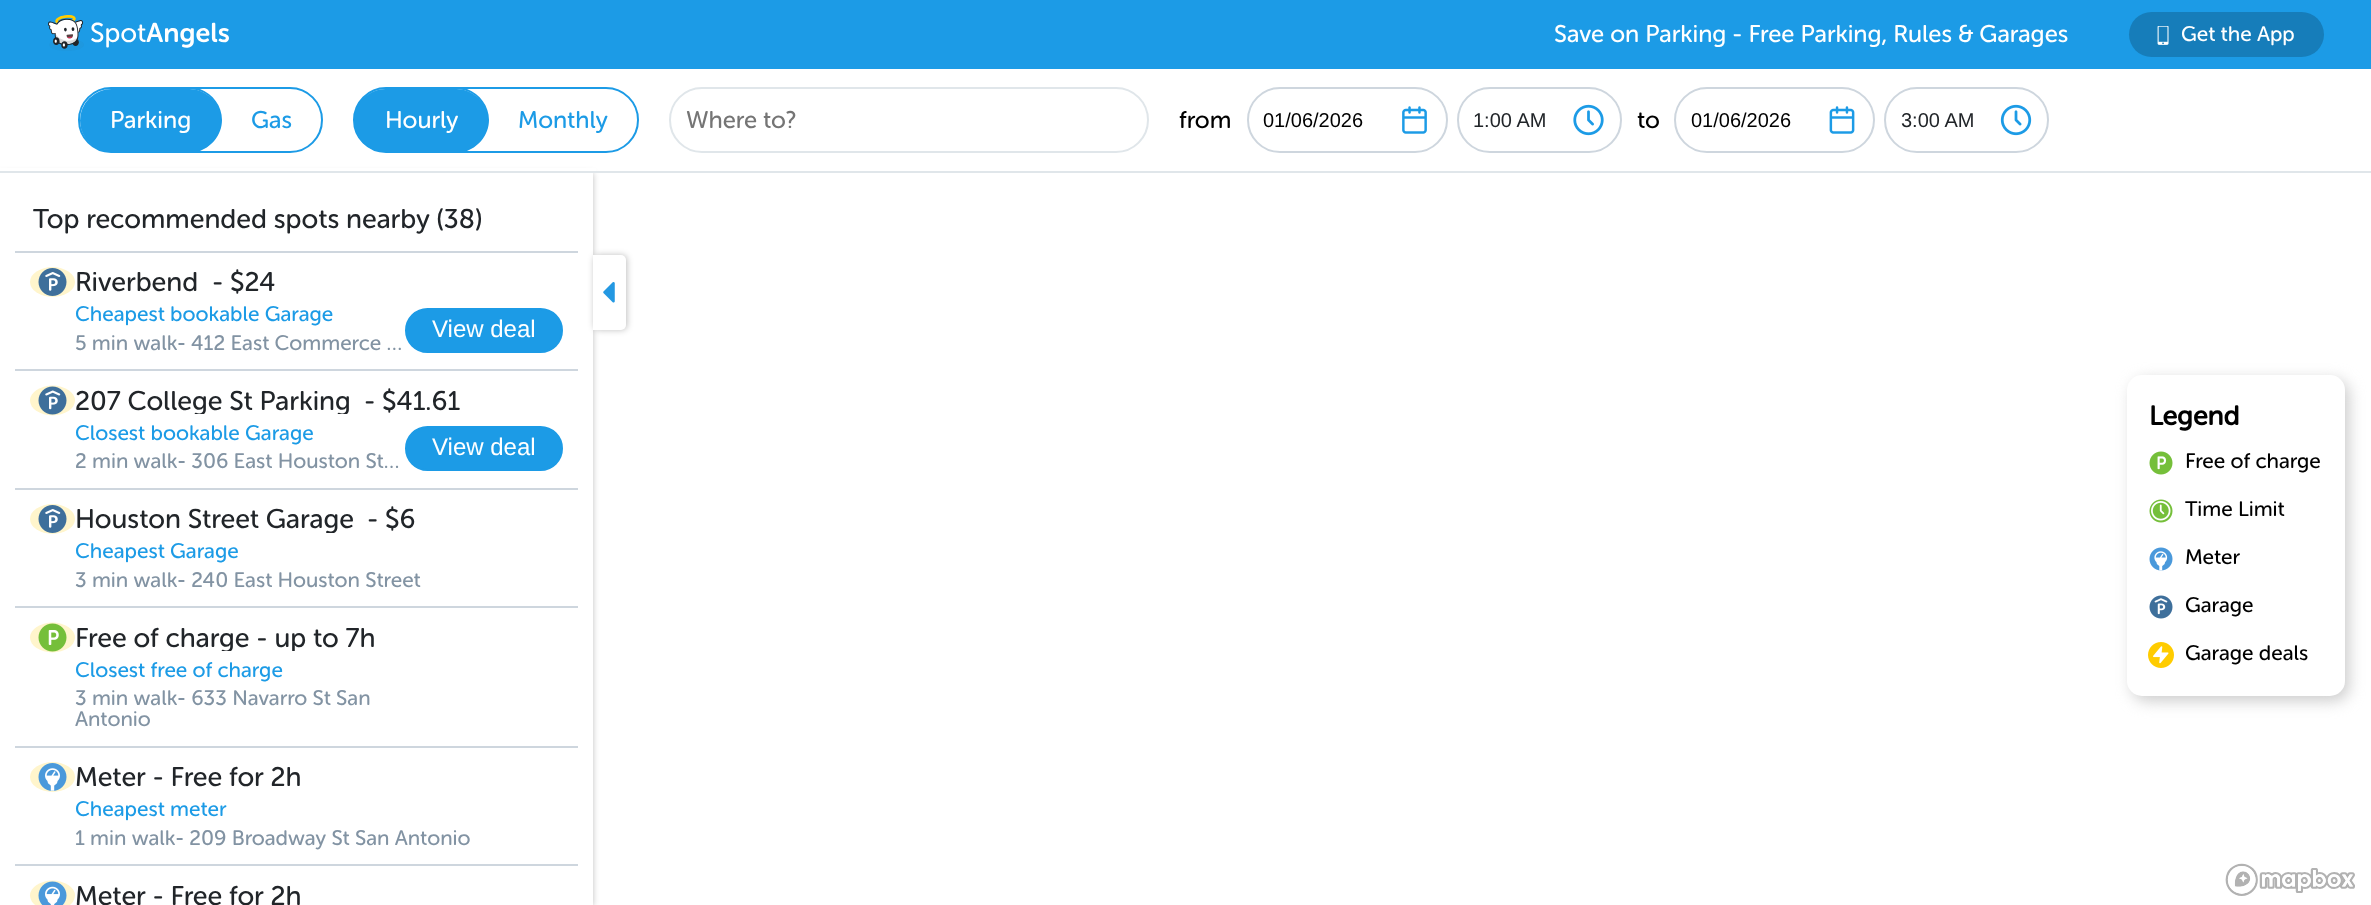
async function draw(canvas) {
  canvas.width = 2371
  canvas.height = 905
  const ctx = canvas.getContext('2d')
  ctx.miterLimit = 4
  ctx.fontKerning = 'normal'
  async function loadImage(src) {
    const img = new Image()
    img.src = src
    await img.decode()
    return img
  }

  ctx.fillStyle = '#fff'
  ctx.fillRect(0, 0, 2371, 905)
  ctx.fillStyle = '#1c9be6'
  ctx.fillRect(0, 0, 2371, 69)
  ctx.drawImage(await loadImage('image0.png'), 48, 15, 181, 36)
  ctx.font = '24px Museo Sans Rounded'
  ctx.fillStyle = '#fff'
  ctx.fillText('Save on Parking - Free Parking, Rules & Garages', 1554, 42)
  ctx.fillStyle = '#167dba'
  ctx.beginPath()
  ctx.roundRect(2129, 12, 195, 45, 22.5)
  ctx.fill()
  ctx.drawImage(await loadImage('image1.png'), 2157, 26, 12, 19)
  ctx.font = '21px Museo Sans Rounded'
  ctx.fillStyle = '#fff'
  ctx.fillText('Get the App', 2181, 41)
  ctx.fillStyle = '#00000040'
  ctx.filter = 'blur(3px)'
  ctx.beginPath()
  ctx.rect(0, 173, 593, 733)
  ctx.fill()
  ctx.filter = 'none'
  ctx.fillStyle = '#fff'
  ctx.fillRect(0, 168, 596, 3)
  ctx.fillStyle = '#e0e6ea'
  ctx.fillRect(0, 171, 2371, 2)
  ctx.beginPath()
  ctx.roundRect(79, 88, 243, 64, 32)
  ctx.strokeStyle = '#1c9be6'
  ctx.lineWidth = 2
  ctx.stroke()
  ctx.fillStyle = '#1c9be6'
  ctx.beginPath()
  ctx.moveTo(200, 89)
  ctx.bezierCurveTo(213, 94, 222, 106, 222, 120)
  ctx.bezierCurveTo(222, 135, 211, 148, 197, 152)
  ctx.lineTo(112, 152)
  ctx.bezierCurveTo(94, 152, 80, 138, 80, 120)
  ctx.bezierCurveTo(80, 137, 94, 151, 111, 151)
  ctx.lineTo(189, 151)
  ctx.bezierCurveTo(206, 151, 220, 137, 220, 120)
  ctx.bezierCurveTo(220, 103, 206, 89, 189, 89)
  ctx.closePath()
  ctx.fill()
  ctx.beginPath()
  ctx.roundRect(80, 89, 141, 63, 31.5)
  ctx.fill()
  ctx.font = '24px Museo Sans Rounded'
  ctx.fillStyle = '#fff'
  ctx.fillText('Parking', 110, 128)
  ctx.fillStyle = '#1c9be6'
  ctx.fillText('Gas', 251, 128)
  ctx.beginPath()
  ctx.roundRect(354, 88, 284, 64, 32)
  ctx.stroke()
  ctx.beginPath()
  ctx.moveTo(386, 89)
  ctx.bezierCurveTo(369, 89, 355, 103, 355, 120)
  ctx.bezierCurveTo(355, 137, 369, 151, 386, 151)
  ctx.lineTo(456, 151)
  ctx.bezierCurveTo(473, 151, 487, 137, 487, 120)
  ctx.bezierCurveTo(487, 103, 473, 89, 456, 89)
  ctx.lineTo(467, 89)
  ctx.bezierCurveTo(480, 94, 489, 106, 489, 120)
  ctx.bezierCurveTo(489, 135, 478, 148, 464, 152)
  ctx.lineTo(386, 152)
  ctx.bezierCurveTo(368, 152, 354, 138, 354, 120)
  ctx.bezierCurveTo(354, 103, 368, 89, 386, 89)
  ctx.closePath()
  ctx.fill()
  ctx.beginPath()
  ctx.roundRect(354, 89, 134, 63, 31.5)
  ctx.fill()
  ctx.fillStyle = '#fff'
  ctx.fillText('Hourly', 385, 128)
  ctx.fillStyle = '#1c9be6'
  ctx.fillText('Monthly', 518, 128)
  ctx.beginPath()
  ctx.roundRect(670, 88, 478, 64, 32)
  ctx.strokeStyle = '#e0e6ea'
  ctx.stroke()
  ctx.fillStyle = '#757575'
  ctx.fillText('Where to?', 686, 128)
  ctx.fillStyle = '#000'
  ctx.fillText('from', 1179, 128)
  ctx.drawImage(await loadImage('image2.png'), 1402, 106, 25, 28)
  ctx.beginPath()
  ctx.roundRect(1248, 88, 199, 64, 32)
  ctx.strokeStyle = '#ced6de'
  ctx.stroke()
  ctx.font = '20px Liberation Sans'
  ctx.fillText('01/06/2026', 1263, 127)
  ctx.drawImage(await loadImage('image3.png'), 1573, 104, 31, 32)
  ctx.beginPath()
  ctx.roundRect(1458, 88, 163, 64, 32)
  ctx.stroke()
  ctx.fillStyle = '#212529'
  ctx.fillText('1:00 AM', 1473, 127)
  ctx.font = '24px Museo Sans Rounded'
  ctx.fillStyle = '#000'
  ctx.fillText('to', 1637, 128)
  ctx.drawImage(await loadImage('image4.png'), 1829, 106, 26, 28)
  ctx.beginPath()
  ctx.roundRect(1675, 88, 199, 64, 32)
  ctx.stroke()
  ctx.font = '20px Liberation Sans'
  ctx.fillText('01/06/2026', 1691, 127)
  ctx.drawImage(await loadImage('image5.png'), 2000, 104, 32, 32)
  ctx.beginPath()
  ctx.roundRect(1885, 88, 163, 64, 32)
  ctx.stroke()
  ctx.fillStyle = '#212529'
  ctx.fillText('3:00 AM', 1901, 127)
  ctx.fillStyle = '#fff'
  ctx.fillRect(0, 173, 593, 732)
  ctx.font = '27px Museo Sans Rounded'
  ctx.fillStyle = '#212529'
  ctx.fillText('Top recommended spots nearby (38)', 33, 228)
  ctx.fillStyle = '#ced6de'
  ctx.fillRect(15, 251, 563, 2)
  ctx.fillRect(15, 369, 563, 2)
  ctx.fillStyle = '#fff5cc'
  ctx.beginPath()
  ctx.ellipse(52.5, 282, 22.5, 15, 0, 0, 2 * Math.PI)
  ctx.fill()
  ctx.drawImage(await loadImage('image6.png'), 38, 268, 29, 28)
  ctx.fillStyle = '#212529'
  ctx.fillText('Riverbend', 75, 291)
  ctx.fillText('- $24', 212, 291)
  ctx.font = '21px Museo Sans Rounded'
  ctx.fillStyle = '#1c9be6'
  ctx.fillText('Cheapest bookable Garage', 75, 321)
  ctx.beginPath()
  ctx.roundRect(406, 309, 156, 43, 21.5)
  ctx.fill()
  ctx.strokeStyle = '#1c9be6'
  ctx.stroke()
  ctx.font = '24px Liberation Sans'
  ctx.fillStyle = '#fff'
  ctx.fillText('View deal', 432, 337)
  ctx.font = '21px Museo Sans Rounded'
  ctx.fillStyle = '#8293a3'
  ctx.fillText('5 min walk- 412 East Commerce …', 75, 350)
  ctx.fillStyle = '#ced6de'
  ctx.fillRect(15, 488, 563, 2)
  ctx.fillStyle = '#fff5cc'
  ctx.beginPath()
  ctx.ellipse(52.5, 400.5, 22.5, 15, 0, 0, 2 * Math.PI)
  ctx.fill()
  ctx.drawImage(await loadImage('image7.png'), 38, 386, 29, 29)
  ctx.save()
  ctx.beginPath()
  ctx.rect(75, 387, 276, 27)
  ctx.clip()
  ctx.font = '27px Museo Sans Rounded'
  ctx.fillStyle = '#212529'
  ctx.fillText('207 College St Parking', 75, 410)
  ctx.restore()
  ctx.font = '27px Museo Sans Rounded'
  ctx.fillStyle = '#212529'
  ctx.fillText('- $41.61', 364, 410)
  ctx.font = '21px Museo Sans Rounded'
  ctx.fillStyle = '#1c9be6'
  ctx.fillText('Closest bookable Garage', 75, 440)
  ctx.beginPath()
  ctx.roundRect(406, 427, 156, 43, 21.5)
  ctx.fill()
  ctx.stroke()
  ctx.font = '24px Liberation Sans'
  ctx.fillStyle = '#fff'
  ctx.fillText('View deal', 432, 455)
  ctx.font = '21px Museo Sans Rounded'
  ctx.fillStyle = '#8293a3'
  ctx.fillText('2 min walk- 306 East Houston St…', 75, 468)
  ctx.fillStyle = '#ced6de'
  ctx.fillRect(15, 606, 563, 2)
  ctx.fillStyle = '#fff5cc'
  ctx.beginPath()
  ctx.ellipse(52.5, 519, 22.5, 15, 0, 0, 2 * Math.PI)
  ctx.fill()
  ctx.drawImage(await loadImage('image6.png'), 38, 505, 29, 28)
  ctx.save()
  ctx.beginPath()
  ctx.rect(75, 506, 279, 27)
  ctx.clip()
  ctx.font = '27px Museo Sans Rounded'
  ctx.fillStyle = '#212529'
  ctx.fillText('Houston Street Garage', 75, 528)
  ctx.restore()
  ctx.font = '27px Museo Sans Rounded'
  ctx.fillStyle = '#212529'
  ctx.fillText('- $6', 367, 528)
  ctx.font = '21px Museo Sans Rounded'
  ctx.fillStyle = '#1c9be6'
  ctx.fillText('Cheapest Garage', 75, 558)
  ctx.fillStyle = '#8293a3'
  ctx.fillText('3 min walk- 240 East Houston Street', 75, 587)
  ctx.fillStyle = '#ced6de'
  ctx.fillRect(15, 746, 563, 2)
  ctx.fillStyle = '#fff5cc'
  ctx.beginPath()
  ctx.ellipse(52.5, 637.5, 22.5, 15, 0, 0, 2 * Math.PI)
  ctx.fill()
  ctx.drawImage(await loadImage('image8.png'), 38, 623, 29, 29)
  ctx.save()
  ctx.beginPath()
  ctx.rect(75, 624, 300, 27)
  ctx.clip()
  ctx.font = '27px Museo Sans Rounded'
  ctx.fillStyle = '#212529'
  ctx.fillText('Free of charge - up to 7h', 75, 647)
  ctx.restore()
  ctx.fillStyle = '#1c9be6'
  ctx.fillText('Closest free of charge', 75, 677)
  ctx.fillStyle = '#8293a3'
  ctx.fillText('3 min walk- 633 Navarro St San', 75, 705)
  ctx.fillText('Antonio', 75, 726)
  ctx.fillStyle = '#ced6de'
  ctx.fillRect(15, 864, 563, 2)
  ctx.fillStyle = '#fff5cc'
  ctx.beginPath()
  ctx.ellipse(52.5, 777, 22.5, 15, 0, 0, 2 * Math.PI)
  ctx.fill()
  ctx.drawImage(await loadImage('image9.png'), 38, 763, 29, 28)
  ctx.font = '27px Museo Sans Rounded'
  ctx.fillStyle = '#212529'
  ctx.fillText('Meter - Free for 2h', 75, 786)
  ctx.font = '21px Museo Sans Rounded'
  ctx.fillStyle = '#1c9be6'
  ctx.fillText('Cheapest meter', 75, 816)
  ctx.fillStyle = '#8293a3'
  ctx.fillText('1 min walk- 209 Broadway St San Antonio', 75, 845)
  ctx.fillStyle = '#fff5cc'
  ctx.beginPath()
  ctx.ellipse(52.5, 895.5, 22.5, 15, 0, 0, 2 * Math.PI)
  ctx.fill()
  ctx.drawImage(await loadImage('image10.png'), 38, 881, 29, 24)
  ctx.font = '27px Museo Sans Rounded'
  ctx.fillStyle = '#212529'
  ctx.fillText('Meter - Free for 2h', 75, 905)
  ctx.fillStyle = '#00000040'
  ctx.filter = 'blur(3px)'
  ctx.beginPath()
  ctx.roundRect(594, 255, 33, 75, 5)
  ctx.fill()
  ctx.filter = 'none'
  ctx.fillStyle = '#fff'
  ctx.beginPath()
  ctx.roundRect(593, 255, 33, 75, [0, 5, 5, 0])
  ctx.fill()
  ctx.drawImage(await loadImage('image11.png'), 603, 282, 12, 21)
  ctx.fillStyle = '#ccc'
  ctx.filter = 'blur(7.5px)'
  ctx.beginPath()
  ctx.roundRect(2132, 380, 217, 321, 15)
  ctx.fill()
  ctx.filter = 'none'
  ctx.fillStyle = '#fff'
  ctx.beginPath()
  ctx.roundRect(2127, 375, 218, 321, 15)
  ctx.fill()
  ctx.font = 'bold 27px Museo Sans Rounded'
  ctx.fillStyle = '#000'
  ctx.fillText('Legend', 2149, 425)
  ctx.drawImage(await loadImage('image12.png'), 2149, 451, 24, 24)
  ctx.font = '21px Museo Sans Rounded'
  ctx.fillText('Free of charge', 2185, 468)
  ctx.drawImage(await loadImage('image13.png'), 2149, 499, 24, 24)
  ctx.fillText('Time Limit', 2185, 516)
  ctx.drawImage(await loadImage('image14.png'), 2149, 547, 24, 24)
  ctx.fillText('Meter', 2185, 564)
  ctx.drawImage(await loadImage('image15.png'), 2149, 595, 24, 24)
  ctx.fillText('Garage', 2185, 612)
  ctx.drawImage(await loadImage('image16.png'), 2148, 642, 26, 26)
  ctx.fillText('Garage deals', 2185, 660)
  ctx.drawImage(await loadImage('image17.png'), 2225, 863, 130, 33)
}

draw(document.querySelector('canvas'))
